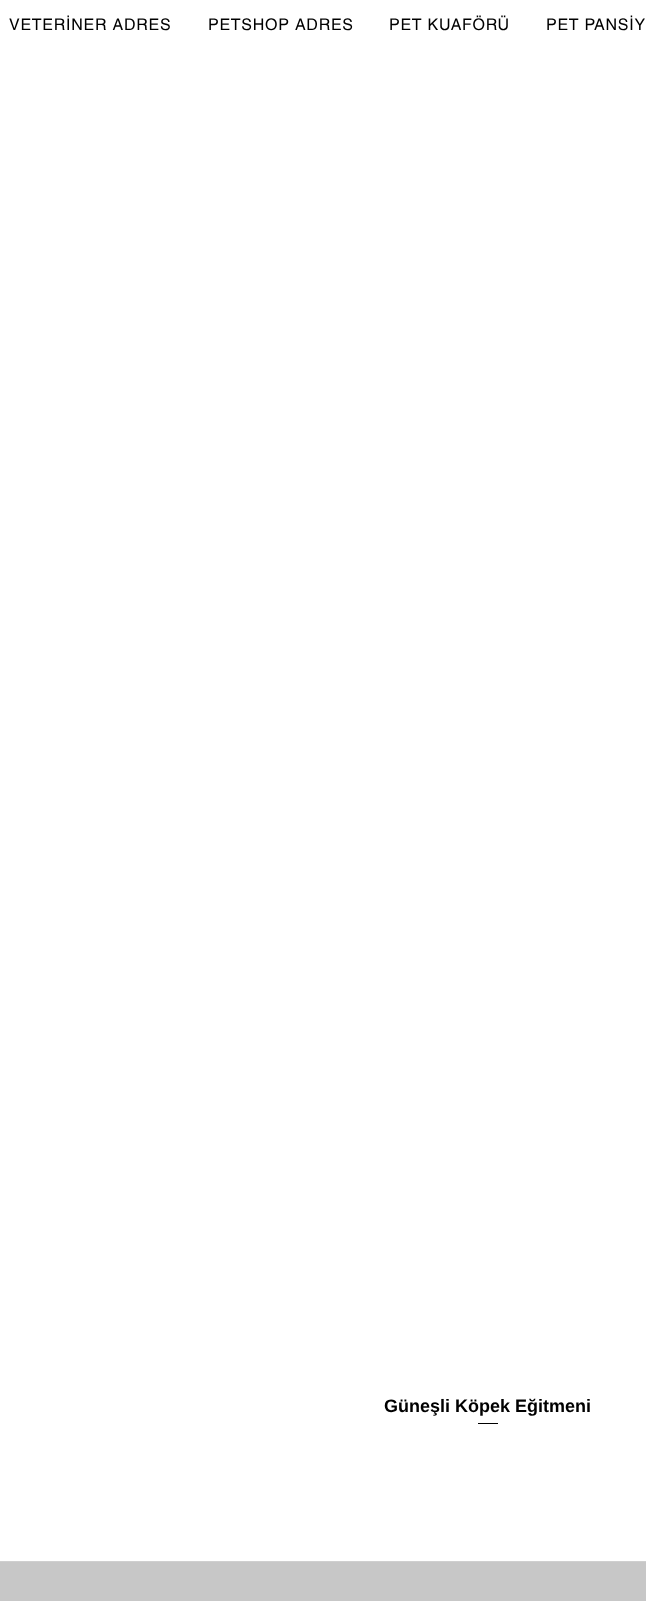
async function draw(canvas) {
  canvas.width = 646
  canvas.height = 1601
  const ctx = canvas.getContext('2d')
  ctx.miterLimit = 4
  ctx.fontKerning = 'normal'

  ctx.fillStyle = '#fff'
  ctx.fillRect(0, 0, 646, 1601)
  ctx.letterSpacing = '0.75px'
  ctx.font = '16px helvetica'
  ctx.fillStyle = '#000'
  ctx.fillText('VETERİNER ADRES', 9, 30)
  ctx.fillText('PETSHOP ADRES', 208, 30)
  ctx.fillText('PET KUAFÖRÜ', 389, 30)
  ctx.fillText('PET PANSİY', 546, 30)
  ctx.letterSpacing = '0px'
  ctx.font = 'bold 18px Liberation Sans'
  ctx.fillText('Güneşli Köpek Eğitmeni', 384, 1412)
  ctx.fillRect(478, 1423, 20, 1)
  ctx.fillStyle = '#c7c7c7'
  ctx.fillRect(0, 1562, 646, 39)
  ctx.fillStyle = '#cfcfcf'
  ctx.fillRect(0, 1561, 646, 1)
}

draw(document.querySelector('canvas'))
